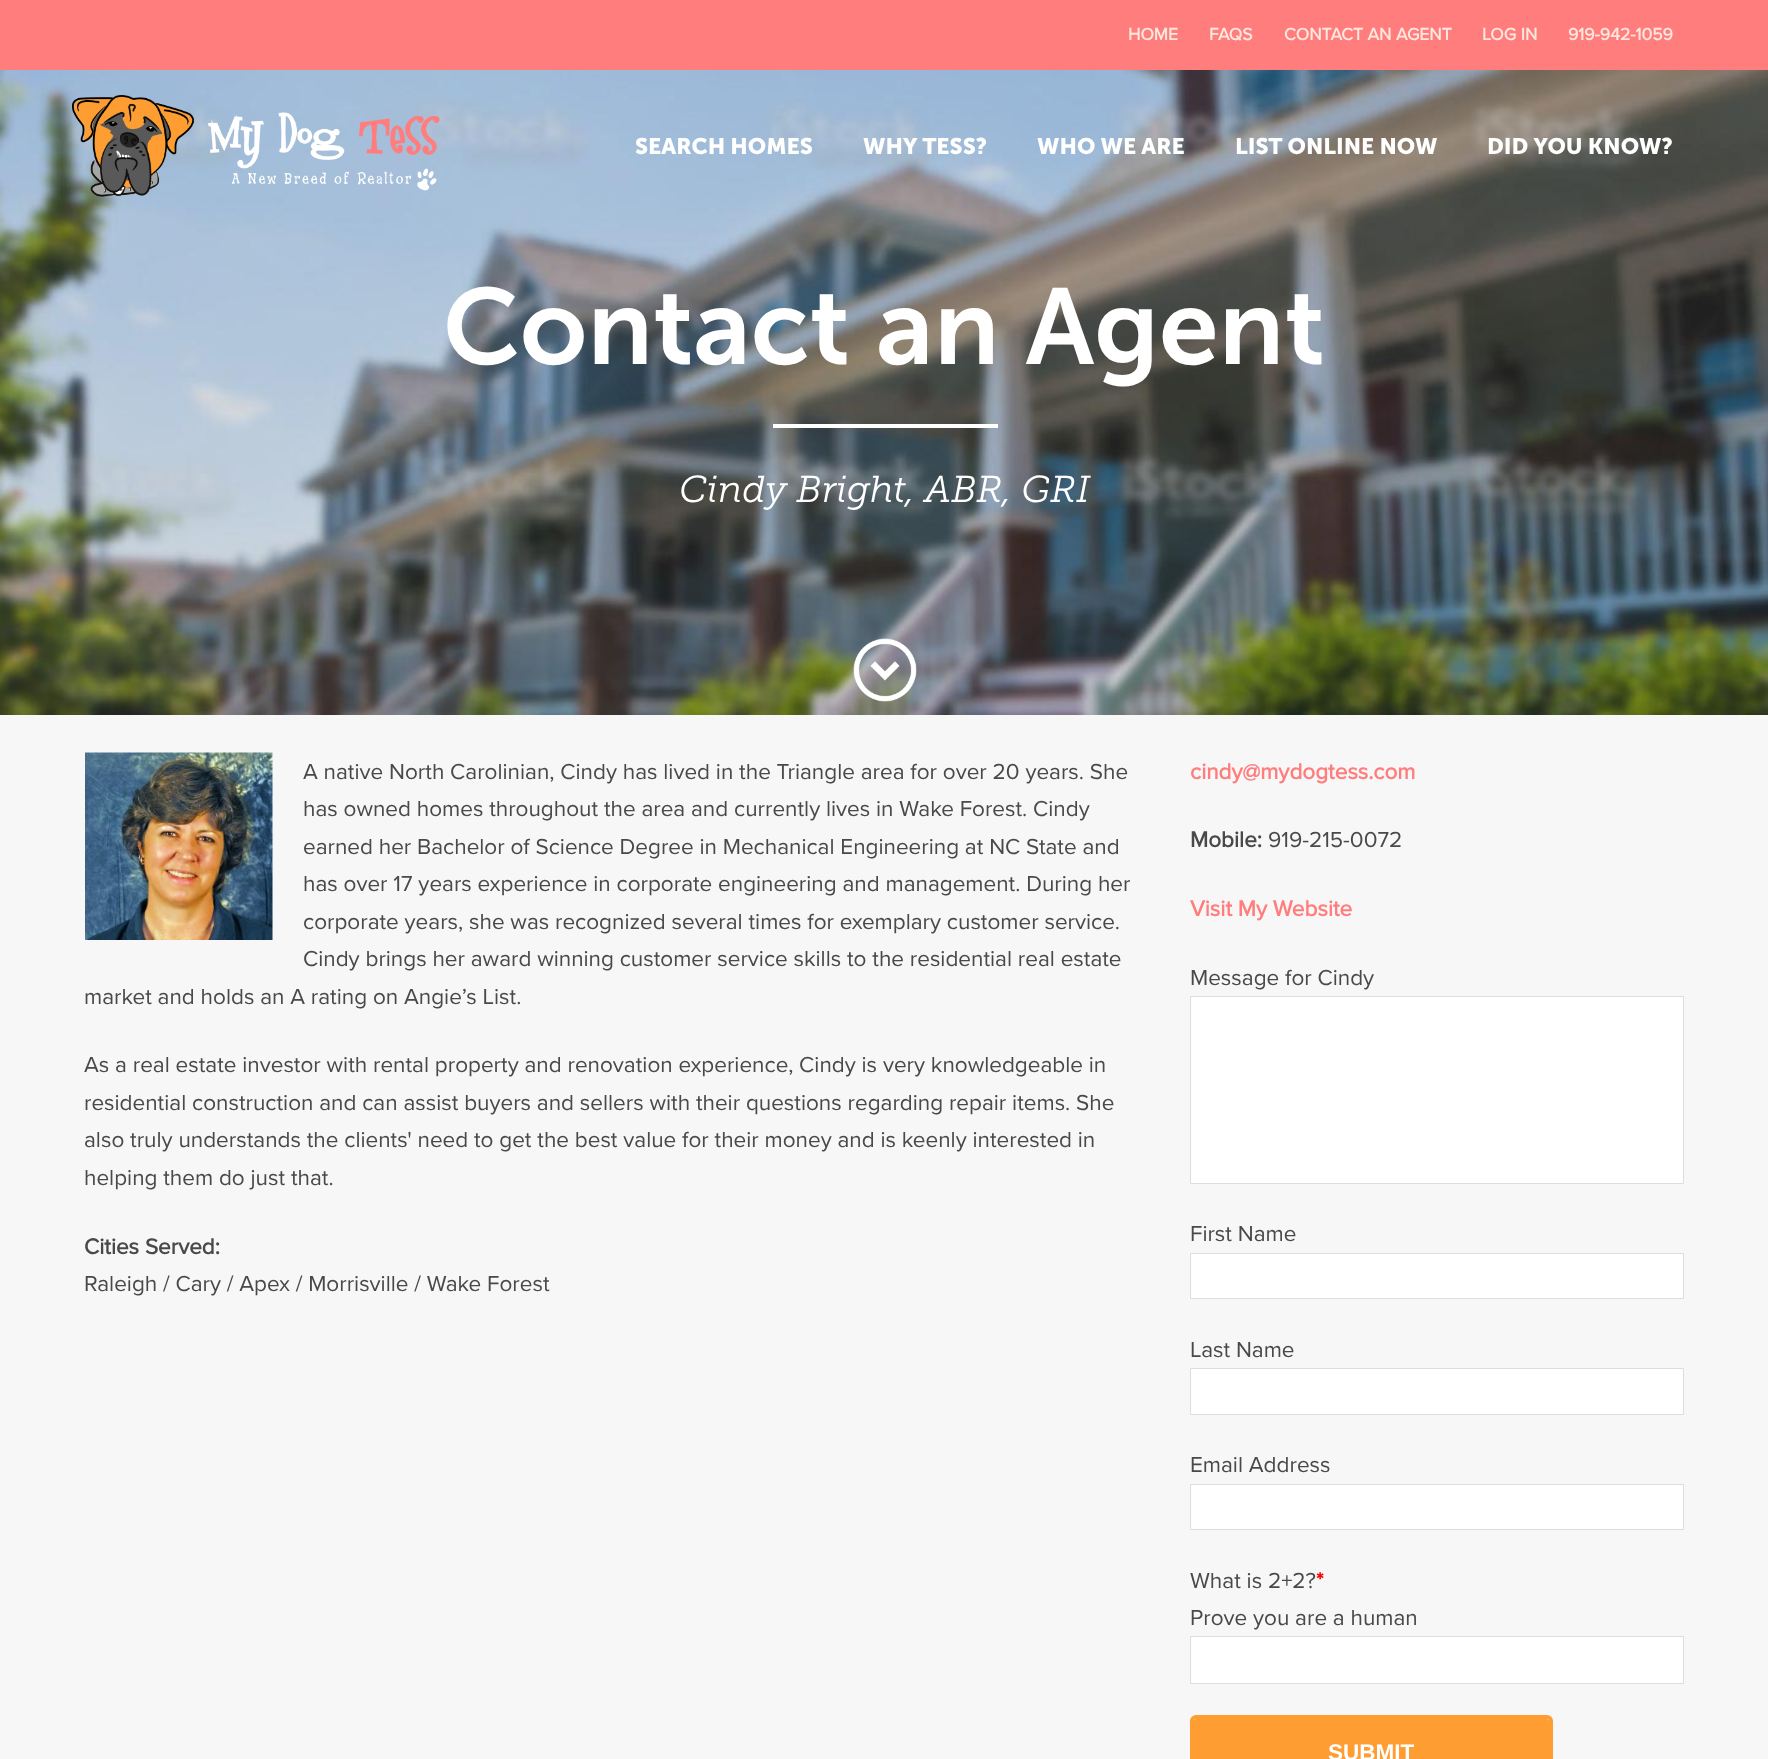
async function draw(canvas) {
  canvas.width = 1768
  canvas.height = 1759
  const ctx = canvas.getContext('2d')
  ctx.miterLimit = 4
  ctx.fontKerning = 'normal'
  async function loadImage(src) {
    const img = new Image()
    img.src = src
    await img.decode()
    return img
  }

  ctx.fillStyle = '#f7f7f7'
  ctx.fillRect(0, 0, 1768, 1759)
  ctx.fillStyle = '#ff7d7d'
  ctx.fillRect(0, 0, 1768, 70)
  ctx.font = 'bold 17.5px Proxima Nova'
  ctx.fillStyle = '#ffe7de'
  ctx.fillText('HOME', 1128, 40)
  ctx.fillText('FAQS', 1209, 40)
  ctx.fillText('CONTACT AN AGENT', 1284, 40)
  ctx.fillText('LOG IN', 1482, 40)
  ctx.fillText('919-942-1059', 1568, 40)
  ctx.drawImage(await loadImage('image1.png'), 0, 70, 1768, 645)
  ctx.drawImage(await loadImage('image0.png'), 72, 95, 368, 102)
  ctx.font = 'bold 22.5px "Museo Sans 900"'
  ctx.fillStyle = '#fff'
  ctx.fillText('SEARCH HOMES', 635, 154)
  ctx.fillText('WHY TESS?', 863, 154)
  ctx.fillText('WHO WE ARE', 1037, 154)
  ctx.fillText('LIST ONLINE NOW', 1235, 154)
  ctx.fillText('DID YOU KNOW?', 1487, 154)
  ctx.font = '600 107.5px "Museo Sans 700"'
  ctx.fillText('Contact an Agent', 443, 364)
  ctx.fillRect(773, 424, 225, 4)
  ctx.font = 'italic 300 37.5px "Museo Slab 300"'
  ctx.fillText('Cindy Bright, ABR, GRI', 679, 502)
  ctx.drawImage(await loadImage('image2.png'), 853, 638, 64, 64)
  ctx.drawImage(await loadImage('image3.png'), 85, 752, 188, 188)
  ctx.font = '22.5px Proxima Nova'
  ctx.fillStyle = '#4a4949'
  ctx.fillText('A native North Carolinian, Cindy has lived in the Triangle area for over 20 years. She', 303, 779)
  ctx.fillText('has owned homes throughout the area and currently lives in Wake Forest. Cindy', 303, 816)
  ctx.fillText('earned her Bachelor of Science Degree in Mechanical Engineering at NC State and', 303, 854)
  ctx.fillText('has over 17 years experience in corporate engineering and management. During her', 303, 891)
  ctx.fillText('corporate years, she was recognized several times for exemplary customer service.', 303, 929)
  ctx.fillText('Cindy brings her award winning customer service skills to the residential real estate', 303, 966)
  ctx.fillText('market and holds an A rating on Angie’s List.', 84, 1004)
  ctx.fillText('As a real estate investor with rental property and renovation experience, Cindy is very knowledgeable in', 84, 1072)
  ctx.fillText('residential construction and can assist buyers and sellers with their questions regarding repair items. She', 84, 1110)
  ctx.fillText('also truly understands the clients\' need to get the best value for their money and is keenly interested in', 84, 1147)
  ctx.fillText('helping them do just that.', 84, 1185)
  ctx.font = 'bold 22.5px Proxima Nova'
  ctx.fillText('Cities Served:', 84, 1254)
  ctx.font = '22.5px Proxima Nova'
  ctx.fillText('Raleigh / Cary / Apex / Morrisville / Wake Forest', 84, 1291)
  ctx.font = 'bold 22.5px Proxima Nova'
  ctx.fillStyle = '#ff7d7d'
  ctx.fillText('cindy@mydogtess.com', 1190, 779)
  ctx.fillStyle = '#4a4949'
  ctx.fillText('Mobile:', 1190, 847)
  ctx.font = '22.5px Proxima Nova'
  ctx.fillText('919-215-0072', 1268, 847)
  ctx.font = 'bold 22.5px Proxima Nova'
  ctx.fillStyle = '#ff7d7d'
  ctx.fillText('Visit My Website', 1190, 916)
  ctx.font = '22.5px Proxima Nova'
  ctx.fillStyle = '#4a4949'
  ctx.fillText('Message for Cindy', 1190, 985)
  ctx.fillStyle = '#fff'
  ctx.beginPath()
  ctx.rect(1190.5, 996.5, 493, 187)
  ctx.fill()
  ctx.strokeStyle = '#ddd'
  ctx.stroke()
  ctx.fillStyle = '#4a4949'
  ctx.fillText('First Name', 1190, 1241)
  ctx.fillStyle = '#fff'
  ctx.beginPath()
  ctx.rect(1190.5, 1253.5, 493, 45)
  ctx.fill()
  ctx.stroke()
  ctx.fillStyle = '#4a4949'
  ctx.fillText('Last Name', 1190, 1357)
  ctx.fillStyle = '#fff'
  ctx.beginPath()
  ctx.rect(1190.5, 1368.5, 493, 46)
  ctx.fill()
  ctx.stroke()
  ctx.fillStyle = '#4a4949'
  ctx.fillText('Email Address', 1190, 1472)
  ctx.fillStyle = '#fff'
  ctx.beginPath()
  ctx.rect(1190.5, 1484.5, 493, 45)
  ctx.fill()
  ctx.stroke()
  ctx.fillStyle = '#4a4949'
  ctx.fillText('What is 2+2?', 1190, 1588)
  ctx.font = 'bold 22.5px Proxima Nova'
  ctx.fillStyle = '#f00'
  ctx.fillText('*', 1316, 1588)
  ctx.font = '22.5px Proxima Nova'
  ctx.fillStyle = '#4a4949'
  ctx.fillText('Prove you are a human', 1190, 1625)
  ctx.fillStyle = '#fff'
  ctx.beginPath()
  ctx.rect(1190.5, 1636.5, 493, 47)
  ctx.fill()
  ctx.stroke()
  ctx.fillStyle = '#fe9e32'
  ctx.beginPath()
  ctx.roundRect(1194, 1719, 355, 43, 2.5)
  ctx.fill()
  ctx.beginPath()
  ctx.roundRect(1192, 1717, 359, 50, 4)
  ctx.strokeStyle = '#fe9e32'
  ctx.lineWidth = 4
  ctx.stroke()
  ctx.font = 'bold 22.5px Liberation Sans'
  ctx.fillStyle = '#fff'
  ctx.fillText('SUBMIT', 1328, 1760)
}

draw(document.querySelector('canvas'))
